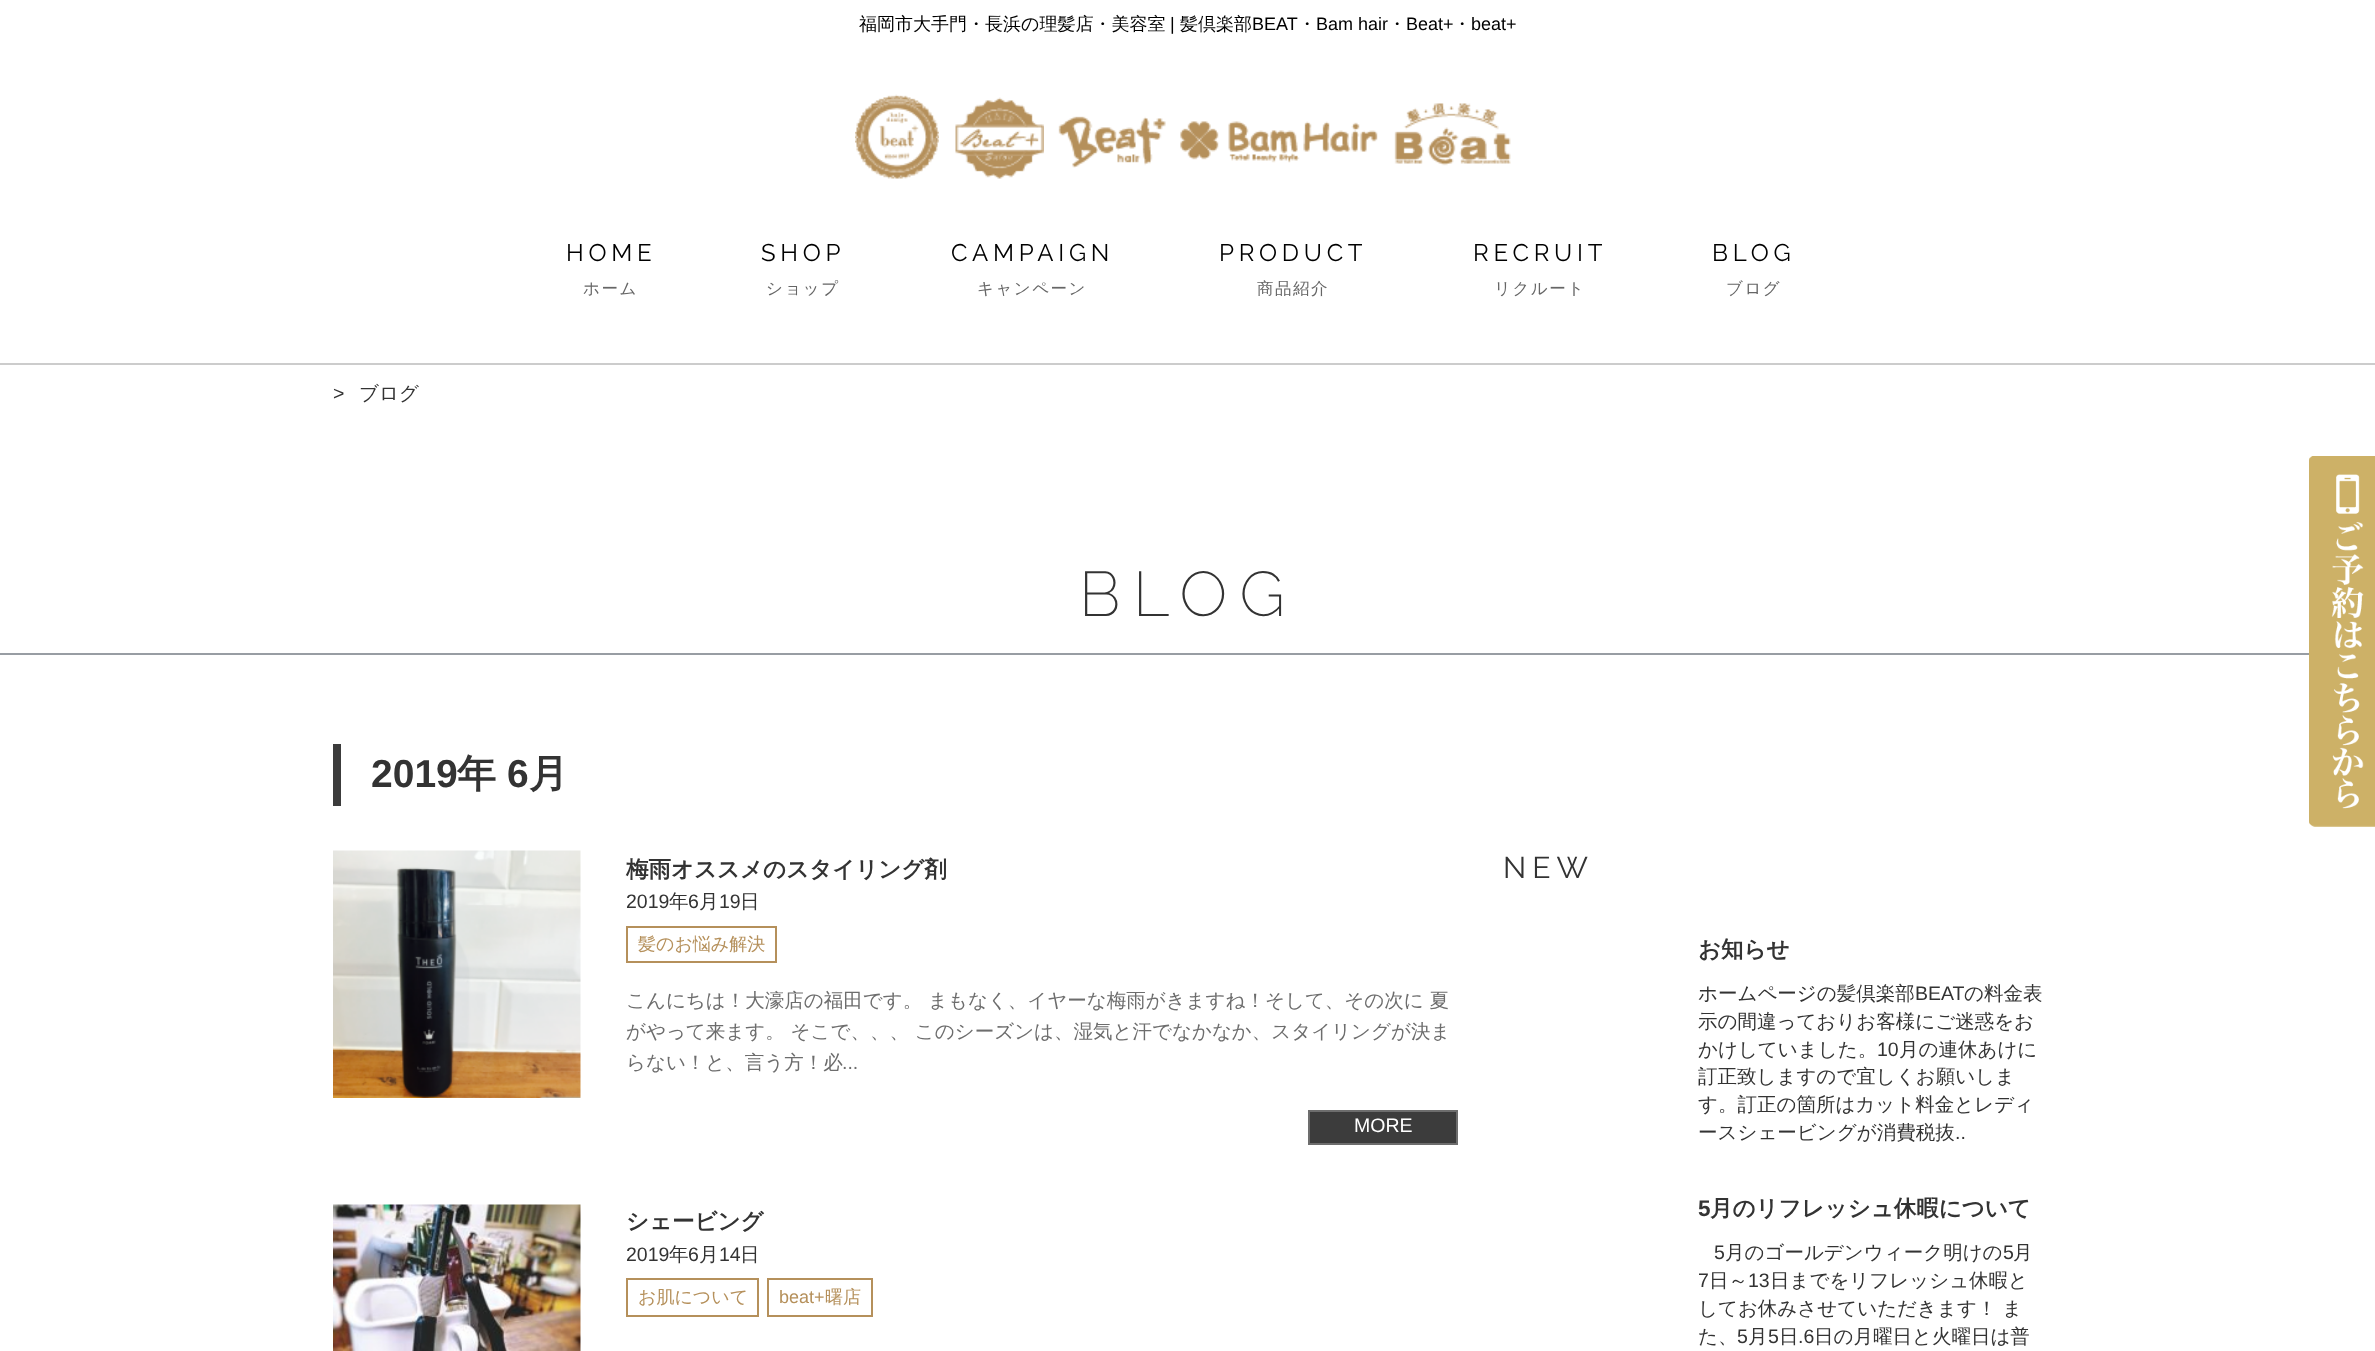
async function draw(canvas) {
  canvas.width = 2375
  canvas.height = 1351
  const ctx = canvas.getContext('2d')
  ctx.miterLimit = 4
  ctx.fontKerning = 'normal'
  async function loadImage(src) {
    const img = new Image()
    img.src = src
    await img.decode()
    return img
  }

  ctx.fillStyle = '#fff'
  ctx.fillRect(0, 0, 2375, 1351)
  ctx.font = '500 18px WenQuanYi Zen Hei'
  ctx.fillStyle = '#000'
  ctx.fillText('福岡市大手門・長浜の理髪店・美容室', 859, 30)
  ctx.font = '18px Liberation Sans'
  ctx.fillText('|', 1170, 30)
  ctx.font = '500 18px WenQuanYi Zen Hei'
  ctx.fillText('髪倶楽部', 1180, 30)
  ctx.font = '18px Liberation Sans'
  ctx.fillText('BEAT', 1252, 30)
  ctx.font = '500 18px WenQuanYi Zen Hei'
  ctx.fillText('・', 1298, 30)
  ctx.font = '18px Liberation Sans'
  ctx.fillText('Bam hair', 1316, 30)
  ctx.font = '500 18px WenQuanYi Zen Hei'
  ctx.fillText('・', 1388, 30)
  ctx.font = '18px Liberation Sans'
  ctx.fillText('Beat+', 1406, 30)
  ctx.font = '500 18px WenQuanYi Zen Hei'
  ctx.fillText('・', 1453, 30)
  ctx.font = '18px Liberation Sans'
  ctx.fillText('beat+', 1471, 30)
  ctx.drawImage(await loadImage('image0.png'), 855, 94, 84, 85)
  ctx.drawImage(await loadImage('image1.png'), 955, 97, 89, 82)
  ctx.drawImage(await loadImage('image2.png'), 1058, 116, 108, 52)
  ctx.drawImage(await loadImage('image3.png'), 1180, 121, 198, 42)
  ctx.drawImage(await loadImage('image4.png'), 1394, 103, 117, 63)
  ctx.letterSpacing = '4.75px'
  ctx.font = '24px Raleway'
  ctx.fillText('HOME', 566, 261)
  ctx.letterSpacing = '1.5px'
  ctx.font = '500 16.5px WenQuanYi Zen Hei'
  ctx.fillStyle = '#666'
  ctx.fillText('ホーム', 583, 294)
  ctx.letterSpacing = '4.75px'
  ctx.font = '24px Raleway'
  ctx.fillStyle = '#000'
  ctx.fillText('SHOP', 761, 261)
  ctx.letterSpacing = '1.5px'
  ctx.font = '500 16.5px WenQuanYi Zen Hei'
  ctx.fillStyle = '#666'
  ctx.fillText('ショップ', 766, 294)
  ctx.letterSpacing = '4.75px'
  ctx.font = '24px Raleway'
  ctx.fillStyle = '#000'
  ctx.fillText('CAMPAIGN', 951, 261)
  ctx.letterSpacing = '1.5px'
  ctx.font = '500 16.5px WenQuanYi Zen Hei'
  ctx.fillStyle = '#666'
  ctx.fillText('キャンペーン', 977, 294)
  ctx.letterSpacing = '4.75px'
  ctx.font = '24px Raleway'
  ctx.fillStyle = '#000'
  ctx.fillText('PRODUCT', 1219, 261)
  ctx.letterSpacing = '1.5px'
  ctx.font = '500 16.5px WenQuanYi Zen Hei'
  ctx.fillStyle = '#666'
  ctx.fillText('商品紹介', 1257, 294)
  ctx.letterSpacing = '4.75px'
  ctx.font = '24px Raleway'
  ctx.fillStyle = '#000'
  ctx.fillText('RECRUIT', 1473, 261)
  ctx.letterSpacing = '1.5px'
  ctx.font = '500 16.5px WenQuanYi Zen Hei'
  ctx.fillStyle = '#666'
  ctx.fillText('リクルート', 1494, 294)
  ctx.letterSpacing = '4.75px'
  ctx.font = '24px Raleway'
  ctx.fillStyle = '#000'
  ctx.fillText('BLOG', 1712, 261)
  ctx.letterSpacing = '1.5px'
  ctx.font = '500 16.5px WenQuanYi Zen Hei'
  ctx.fillStyle = '#666'
  ctx.fillText('ブログ', 1726, 294)
  ctx.fillStyle = '#ccc'
  ctx.fillRect(0, 363, 2375, 2)
  ctx.letterSpacing = '0px'
  ctx.font = '19.5px Liberation Sans'
  ctx.fillStyle = '#333'
  ctx.fillText('>', 333, 400)
  ctx.font = '500 19.5px WenQuanYi Zen Hei'
  ctx.fillText('ブログ', 359, 400)
  ctx.fillStyle = '#989da3'
  ctx.fillRect(0, 653, 2309, 2)
  ctx.letterSpacing = '12.5px'
  ctx.font = '200 63px Raleway'
  ctx.fillStyle = '#333'
  ctx.fillText('BLOG', 1079, 616)
  ctx.fillStyle = '#3c3c3c'
  ctx.fillRect(333, 744, 8, 62)
  ctx.letterSpacing = '0px'
  ctx.font = 'bold 39px Liberation Sans'
  ctx.fillStyle = '#333'
  ctx.fillText('2019', 371, 787)
  ctx.font = 'bold 39px WenQuanYi Zen Hei'
  ctx.fillText('年', 457, 787)
  ctx.font = 'bold 39px Liberation Sans'
  ctx.fillText('6', 507, 787)
  ctx.font = 'bold 39px WenQuanYi Zen Hei'
  ctx.fillText('月', 529, 787)
  ctx.drawImage(await loadImage('image5.png'), 333, 850, 248, 248)
  ctx.font = 'bold 22.5px WenQuanYi Zen Hei'
  ctx.fillText('梅雨オススメのスタイリング剤', 626, 877)
  ctx.font = '19.5px Liberation Sans'
  ctx.fillText('2019', 626, 908)
  ctx.font = '500 19.5px WenQuanYi Zen Hei'
  ctx.fillText('年', 669, 908)
  ctx.font = '19.5px Liberation Sans'
  ctx.fillText('6', 688, 908)
  ctx.font = '500 19.5px WenQuanYi Zen Hei'
  ctx.fillText('月', 699, 908)
  ctx.font = '19.5px Liberation Sans'
  ctx.fillText('19', 719, 908)
  ctx.font = '500 19.5px WenQuanYi Zen Hei'
  ctx.fillText('日', 740, 908)
  ctx.strokeStyle = '#b5905b'
  ctx.lineWidth = 2
  ctx.strokeRect(627, 927, 149, 35)
  ctx.font = '500 18px WenQuanYi Zen Hei'
  ctx.fillStyle = '#b5905b'
  ctx.fillText('髪のお悩み解決', 638, 950)
  ctx.font = '500 19.5px WenQuanYi Zen Hei'
  ctx.fillStyle = '#6d6d6d'
  ctx.fillText('こんにちは！大濠店の福田です。 まもなく、イヤーな梅雨がきますね！そして、その次に 夏', 626, 1007)
  ctx.fillText('がやって来ます。 そこで、、、 このシーズンは、湿気と汗でなかなか、スタイリングが決ま', 626, 1038)
  ctx.fillText('らない！と、言う方！必', 626, 1069)
  ctx.font = '19.5px Liberation Sans'
  ctx.fillText('...', 842, 1069)
  ctx.fillStyle = '#3c3c3c'
  ctx.beginPath()
  ctx.rect(1309, 1111, 148, 33)
  ctx.fill()
  ctx.strokeStyle = '#6d6d6d'
  ctx.stroke()
  ctx.fillStyle = '#fff'
  ctx.fillText('MORE', 1354, 1132)
  ctx.drawImage(await loadImage('image6.png'), 333, 1204, 248, 147)
  ctx.font = 'bold 22.5px WenQuanYi Zen Hei'
  ctx.fillStyle = '#333'
  ctx.fillText('シェービング', 626, 1229)
  ctx.font = '19.5px Liberation Sans'
  ctx.fillText('2019', 626, 1261)
  ctx.font = '500 19.5px WenQuanYi Zen Hei'
  ctx.fillText('年', 669, 1261)
  ctx.font = '19.5px Liberation Sans'
  ctx.fillText('6', 688, 1261)
  ctx.font = '500 19.5px WenQuanYi Zen Hei'
  ctx.fillText('月', 699, 1261)
  ctx.font = '19.5px Liberation Sans'
  ctx.fillText('14', 719, 1261)
  ctx.font = '500 19.5px WenQuanYi Zen Hei'
  ctx.fillText('日', 740, 1261)
  ctx.strokeStyle = '#b5905b'
  ctx.strokeRect(627, 1279, 131, 37)
  ctx.font = '500 18px WenQuanYi Zen Hei'
  ctx.fillStyle = '#b5905b'
  ctx.fillText('お肌について', 638, 1303)
  ctx.strokeRect(768, 1279, 104, 37)
  ctx.font = '18px Liberation Sans'
  ctx.fillText('beat+', 779, 1303)
  ctx.font = '500 18px WenQuanYi Zen Hei'
  ctx.fillText('曙店', 825, 1303)
  ctx.letterSpacing = '6px'
  ctx.font = '30px Raleway'
  ctx.fillStyle = '#333'
  ctx.fillText('NEW', 1503, 878)
  ctx.letterSpacing = '0px'
  ctx.font = 'bold 22.5px WenQuanYi Zen Hei'
  ctx.fillText('お知らせ', 1698, 957)
  ctx.font = '500 19.5px WenQuanYi Zen Hei'
  ctx.fillText('ホームページの髪倶楽部', 1698, 1000)
  ctx.font = '19.5px Liberation Sans'
  ctx.fillText('BEAT', 1915, 1000)
  ctx.font = '500 19.5px WenQuanYi Zen Hei'
  ctx.fillText('の料金表', 1964, 1000)
  ctx.fillText('示の間違っておりお客様にご迷惑をお', 1698, 1028)
  ctx.fillText('かけしていました。', 1698, 1056)
  ctx.font = '19.5px Liberation Sans'
  ctx.fillText('10', 1877, 1056)
  ctx.font = '500 19.5px WenQuanYi Zen Hei'
  ctx.fillText('月の連休あけに', 1899, 1056)
  ctx.fillText('訂正致しますので宜しくお願いしま', 1698, 1083)
  ctx.fillText('す。訂正の箇所はカット料金とレディ', 1698, 1111)
  ctx.fillText('ースシェービングが消費税抜', 1698, 1139)
  ctx.font = '19.5px Liberation Sans'
  ctx.fillText('..', 1955, 1139)
  ctx.font = 'bold 22.5px Liberation Sans'
  ctx.fillText('5', 1698, 1216)
  ctx.font = 'bold 22.5px WenQuanYi Zen Hei'
  ctx.fillText('月のリフレッシュ休暇について', 1710, 1216)
  ctx.font = '19.5px Liberation Sans'
  ctx.fillText('5', 1714, 1259)
  ctx.font = '500 19.5px WenQuanYi Zen Hei'
  ctx.fillText('月のゴールデンウィーク明けの', 1725, 1259)
  ctx.font = '19.5px Liberation Sans'
  ctx.fillText('5', 2003, 1259)
  ctx.font = '500 19.5px WenQuanYi Zen Hei'
  ctx.fillText('月', 2013, 1259)
  ctx.font = '19.5px Liberation Sans'
  ctx.fillText('7', 1698, 1287)
  ctx.font = '500 19.5px WenQuanYi Zen Hei'
  ctx.fillText('日～', 1709, 1287)
  ctx.font = '19.5px Liberation Sans'
  ctx.fillText('13', 1748, 1287)
  ctx.font = '500 19.5px WenQuanYi Zen Hei'
  ctx.fillText('日までをリフレッシュ休暇と', 1770, 1287)
  ctx.fillText('してお休みさせていただきます！ ま', 1698, 1315)
  ctx.fillText('た、', 1698, 1343)
  ctx.font = '19.5px Liberation Sans'
  ctx.fillText('5', 1737, 1343)
  ctx.font = '500 19.5px WenQuanYi Zen Hei'
  ctx.fillText('月', 1748, 1343)
  ctx.font = '19.5px Liberation Sans'
  ctx.fillText('5', 1768, 1343)
  ctx.font = '500 19.5px WenQuanYi Zen Hei'
  ctx.fillText('日', 1779, 1343)
  ctx.font = '19.5px Liberation Sans'
  ctx.fillText('.6', 1798, 1343)
  ctx.font = '500 19.5px WenQuanYi Zen Hei'
  ctx.fillText('日の月曜日と火曜日は普', 1814, 1343)
  ctx.drawImage(await loadImage('image7.png'), 2309, 456, 66, 371)
}

draw(document.querySelector('canvas'))
